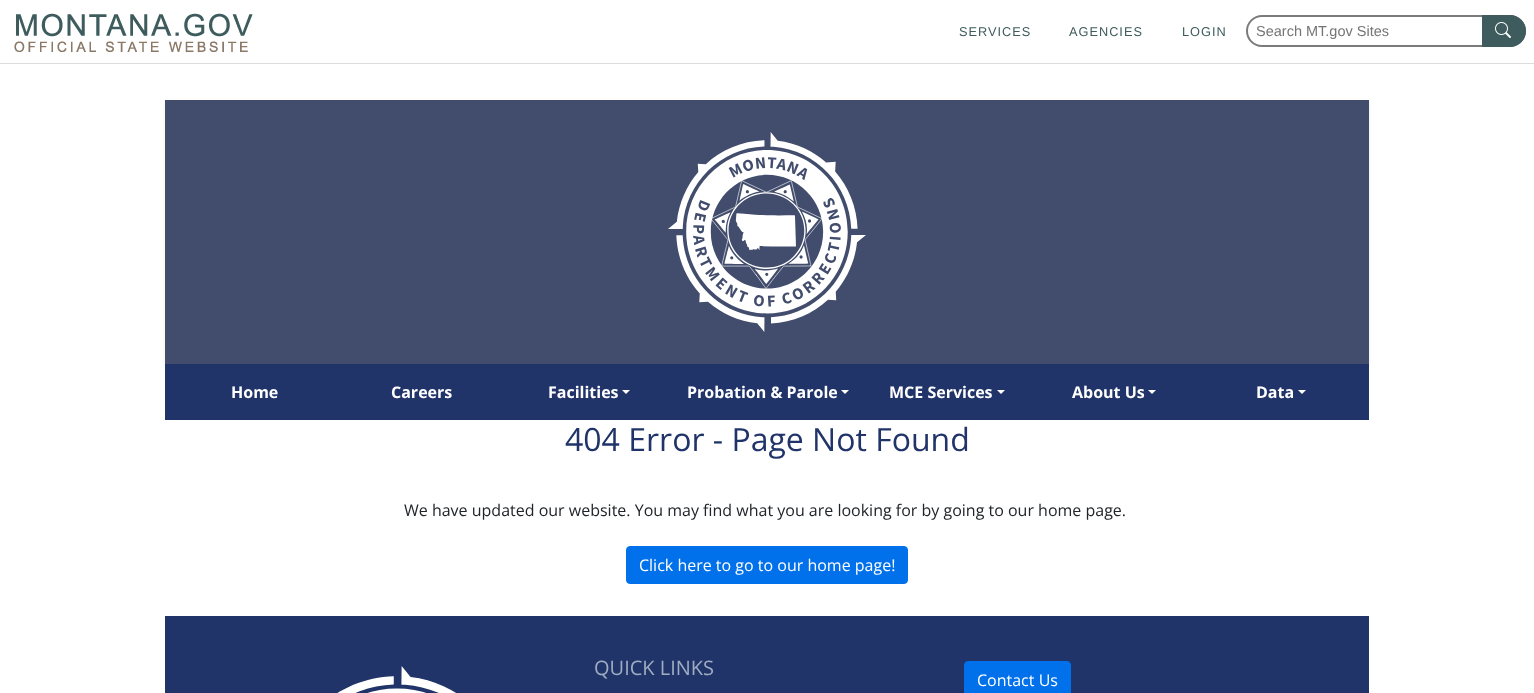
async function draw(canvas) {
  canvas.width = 1534
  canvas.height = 693
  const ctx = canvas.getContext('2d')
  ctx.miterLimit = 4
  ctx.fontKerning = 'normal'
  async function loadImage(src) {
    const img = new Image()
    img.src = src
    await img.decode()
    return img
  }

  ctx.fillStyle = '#fff'
  ctx.fillRect(0, 0, 1534, 693)
  ctx.fillStyle = '#dbdcde'
  ctx.fillRect(0, 63, 1534, 1)
  ctx.drawImage(await loadImage('image0.png'), 14, 13, 239, 39)
  ctx.letterSpacing = '1px'
  ctx.font = '12.75px Liberation Sans'
  ctx.fillStyle = '#3e5b5d'
  ctx.fillText('SERVICES', 959, 36)
  ctx.fillText('AGENCIES', 1069, 36)
  ctx.fillText('LOGIN', 1182, 36)
  ctx.beginPath()
  ctx.roundRect(1247, 16, 278, 30, 15)
  ctx.strokeStyle = '#7b7b7b'
  ctx.lineWidth = 2
  ctx.stroke()
  ctx.letterSpacing = '0px'
  ctx.font = '14.5px Liberation Sans'
  ctx.fillStyle = '#757575'
  ctx.fillText('Search MT.gov Sites', 1256, 36)
  ctx.fillStyle = '#3e5c5e'
  ctx.beginPath()
  ctx.roundRect(1482, 15, 44, 32, [0, 16, 16, 0])
  ctx.fill()
  ctx.drawImage(await loadImage('image1.png'), 1495, 22, 16, 16)
  ctx.fillStyle = '#00000012'
  ctx.filter = 'blur(2px)'
  ctx.beginPath()
  ctx.rect(165, 102, 1204, 264)
  ctx.fill()
  ctx.filter = 'none'
  ctx.fillStyle = '#424d6d'
  ctx.fillRect(165, 100, 1204, 264)
  ctx.drawImage(await loadImage('image2.png'), 668, 132, 198, 200)
  ctx.fillStyle = '#213469'
  ctx.fillRect(165, 364, 1204, 56)
  ctx.font = 'bold 16px Open Sans'
  ctx.fillStyle = '#fff'
  ctx.fillText('Home', 231, 398)
  ctx.fillText('Careers', 391, 398)
  ctx.fillText('Facilities', 548, 398)
  ctx.beginPath()
  ctx.moveTo(622, 390)
  ctx.lineTo(630, 390)
  ctx.lineTo(626, 394)
  ctx.closePath()
  ctx.fill()
  ctx.fillText('Probation & Parole', 687, 398)
  ctx.beginPath()
  ctx.moveTo(841, 390)
  ctx.lineTo(849, 390)
  ctx.lineTo(845, 394)
  ctx.closePath()
  ctx.fill()
  ctx.fillText('MCE Services', 889, 398)
  ctx.beginPath()
  ctx.moveTo(997, 390)
  ctx.lineTo(1005, 390)
  ctx.lineTo(1001, 394)
  ctx.closePath()
  ctx.fill()
  ctx.fillText('About Us', 1072, 398)
  ctx.beginPath()
  ctx.moveTo(1148, 390)
  ctx.lineTo(1156, 390)
  ctx.lineTo(1152, 394)
  ctx.closePath()
  ctx.fill()
  ctx.fillText('Data', 1256, 398)
  ctx.beginPath()
  ctx.moveTo(1298, 390)
  ctx.lineTo(1306, 390)
  ctx.lineTo(1302, 394)
  ctx.closePath()
  ctx.fill()
  ctx.font = '32px Open Sans'
  ctx.fillStyle = '#213469'
  ctx.fillText('404 Error - Page Not Found', 565, 451)
  ctx.font = '16px Open Sans'
  ctx.fillStyle = '#212529'
  ctx.fillText('We have updated our website. You may find what you are looking for by going to our home page.', 404, 516)
  ctx.fillStyle = '#0071eb'
  ctx.beginPath()
  ctx.roundRect(626.5, 546.5, 281, 37, 3.5)
  ctx.fill()
  ctx.strokeStyle = '#0071eb'
  ctx.lineWidth = 1
  ctx.stroke()
  ctx.fillStyle = '#fff'
  ctx.fillText('Click here to go to our home page!', 639, 571)
  ctx.fillStyle = '#213469'
  ctx.fillRect(165, 616, 1204, 77)
  ctx.drawImage(await loadImage('image3.png'), 337, 666, 119, 27)
  ctx.font = '20px Open Sans'
  ctx.fillStyle = '#9eadc1'
  ctx.fillText('QUICK LINKS', 594, 675)
  ctx.fillStyle = '#0071eb'
  ctx.beginPath()
  ctx.roundRect(964.5, 661.5, 106, 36, 3.5)
  ctx.fill()
  ctx.stroke()
  ctx.font = '16px Open Sans'
  ctx.fillStyle = '#fff'
  ctx.fillText('Contact Us', 977, 686)
}

draw(document.querySelector('canvas'))
